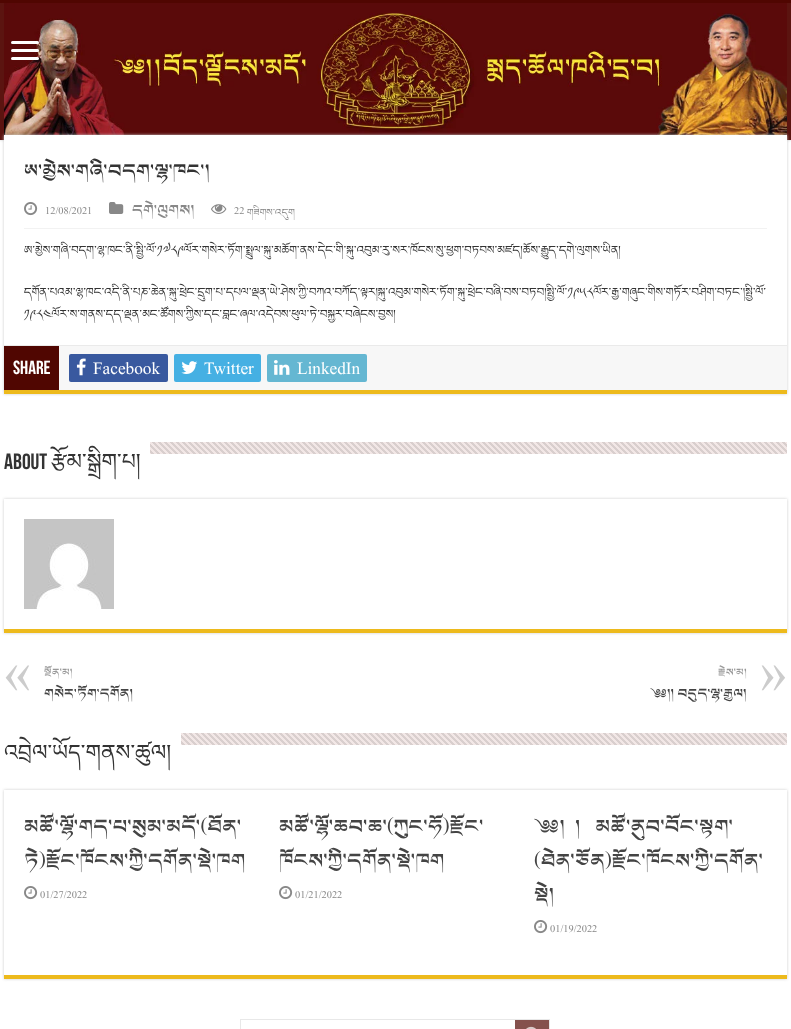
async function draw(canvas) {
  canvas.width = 791
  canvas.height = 1029
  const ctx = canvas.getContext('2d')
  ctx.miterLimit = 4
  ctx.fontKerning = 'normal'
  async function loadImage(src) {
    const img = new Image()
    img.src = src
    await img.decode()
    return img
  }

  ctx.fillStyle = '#fff'
  ctx.fillRect(0, 0, 791, 1029)
  ctx.fillStyle = '#cacaca'
  ctx.filter = 'blur(1.5px)'
  ctx.beginPath()
  ctx.rect(0, 0, 791, 140)
  ctx.fill()
  ctx.filter = 'none'
  ctx.fillStyle = '#5b1410'
  ctx.fillRect(0, 3, 791, 137)
  ctx.fillStyle = '#500601'
  ctx.fillRect(0, 0, 791, 3)
  ctx.drawImage(await loadImage('image0.png'), 4, 3, 783, 132)
  ctx.fillStyle = '#fff'
  ctx.beginPath()
  ctx.roundRect(11, 41, 28, 3, 1.5)
  ctx.fill()
  ctx.beginPath()
  ctx.roundRect(11, 49, 28, 3, 1.5)
  ctx.fill()
  ctx.beginPath()
  ctx.roundRect(11, 57, 28, 3, 1.5)
  ctx.fill()
  ctx.fillStyle = '#cacaca'
  ctx.filter = 'blur(1.5px)'
  ctx.beginPath()
  ctx.rect(4, 135, 783, 259)
  ctx.fill()
  ctx.filter = 'none'
  ctx.fillStyle = '#fff'
  ctx.fillRect(4, 135, 783, 210)
  ctx.fillStyle = '#edba1c'
  ctx.fillRect(4, 390, 783, 4)
  ctx.font = '20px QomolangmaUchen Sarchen'
  ctx.fillStyle = '#333'
  ctx.fillText('ཨ་མྱེས་གཞི་བདག་ལྷ་ཁང་།', 24, 176)
  ctx.fillStyle = '#f2f2f2'
  ctx.fillRect(24, 228, 743, 1)
  ctx.drawImage(await loadImage('image1.png'), 24, 202, 14, 14)
  ctx.font = '15.5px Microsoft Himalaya'
  ctx.fillStyle = '#888'
  ctx.fillText('12/08/2021', 45, 214)
  ctx.drawImage(await loadImage('image2.png'), 109, 202, 15, 12)
  ctx.font = '15.5px QomolangmaUchen Sarchen'
  ctx.fillText('དགེ་ལུགས།', 132, 214)
  ctx.drawImage(await loadImage('image3.png'), 211, 204, 16, 10)
  ctx.font = '15.5px Microsoft Himalaya'
  ctx.fillText('22 གཟིགས་འདུག', 234, 214)
  ctx.font = '18px Microsoft Himalaya'
  ctx.fillStyle = '#333'
  ctx.fillText('ཨ་མྱེས་གཞི་བདག་ལྷ་ཁང་ནི་སྤྱི་ལོ་༡༧༨༩ལོར་གསེར་ཏོག་སྤྲུལ་སྐུ་མཆོག་ནས་དེང་གི་སྐུ་འབུམ་རུ་སར་ཁོངས་སུ་ཕྱག་བཏབས་མཛད།ཆོས་རྒྱུད་དགེ་ལུགས་ཡིན།', 24, 252)
  ctx.fillText('དགོན་པའམ་ལྷ་ཁང་འདི་ནི་པཎ་ཆེན་སྐུ་ཕྲེང་དྲུག་པ་དཔལ་ལྡན་ཡེ་ཤེས་ཀྱི་བཀའ་བཀོད་ལྟར།སྐུ་འབུམ་གསེར་ཏོག་སྐུ་ཕྲེང་བཞི་བས་བཏབ།སྤྱི་ལོ་༡༩༥༨ལོར་རྒྱ་གཞུང་གིས་གཏོར་བཤིག་བཏང་།སྤྱི་ལོ་', 24, 294)
  ctx.fillText('༡༩༨༤ལོར་ས་གནས་དད་ལྡན་མང་ཚོགས་ཀྱིས་དང་བླང་ཞལ་འདེབས་ཕུལ་ཏེ་བསྐྱར་བཞེངས་བྱས།', 24, 316)
  ctx.fillStyle = '#f7f7f7'
  ctx.fillRect(59, 346, 728, 44)
  ctx.fillStyle = '#eaeaea'
  ctx.fillRect(4, 345, 783, 1)
  ctx.fillStyle = '#500601'
  ctx.fillRect(4, 346, 55, 44)
  ctx.font = 'bold 19px Bebas Neue'
  ctx.fillStyle = '#fff'
  ctx.fillText('Share', 13, 374)
  ctx.fillStyle = '#39599f'
  ctx.beginPath()
  ctx.roundRect(69, 354, 99, 28, 2)
  ctx.fill()
  ctx.drawImage(await loadImage('image4.png'), 76, 358, 10, 18)
  ctx.font = '18px QomolangmaUchen Sarchen'
  ctx.fillStyle = '#fff'
  ctx.fillText('Facebook', 93, 374)
  ctx.fillStyle = '#45b0e3'
  ctx.beginPath()
  ctx.roundRect(174, 354, 87, 28, 2)
  ctx.fill()
  ctx.drawImage(await loadImage('image5.png'), 181, 361, 17, 13)
  ctx.fillStyle = '#fff'
  ctx.fillText('Twitter', 204, 374)
  ctx.fillStyle = '#65b7d2'
  ctx.beginPath()
  ctx.roundRect(267, 354, 100, 28, 2)
  ctx.fill()
  ctx.drawImage(await loadImage('image6.png'), 274, 360, 16, 15)
  ctx.fillStyle = '#fff'
  ctx.fillText('LinkedIn', 297, 374)
  ctx.font = 'bold 22px Bebas Neue'
  ctx.fillStyle = '#333'
  ctx.fillText('About', 4, 469)
  ctx.font = '22px Noto Serif Tibetan'
  ctx.fillText('རྩོམ་སྒྲིག་པ།', 51, 469)
  ctx.fillStyle = '#f2e7e6'
  ctx.fillRect(150, 442, 637, 12)
  ctx.drawImage(await loadImage('image7.png'), 150, 442, 637, 12)
  ctx.save()
  ctx.beginPath()
  ctx.moveTo(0, 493)
  ctx.lineTo(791, 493)
  ctx.lineTo(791, 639)
  ctx.lineTo(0, 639)
  ctx.closePath()
  ctx.moveTo(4, 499)
  ctx.lineTo(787, 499)
  ctx.lineTo(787, 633)
  ctx.lineTo(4, 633)
  ctx.closePath()
  ctx.clip('evenodd')
  ctx.fillStyle = '#cacaca'
  ctx.filter = 'blur(1.5px)'
  ctx.beginPath()
  ctx.rect(4, 499, 783, 134)
  ctx.fill()
  ctx.filter = 'none'
  ctx.restore()
  ctx.fillStyle = '#edba1c'
  ctx.fillRect(4, 629, 783, 4)
  ctx.drawImage(await loadImage('image8.png'), 24, 519, 90, 90)
  ctx.font = '56px QomolangmaUchen Sarchen'
  ctx.fillStyle = '#ccc'
  ctx.fillText('«', 4, 690)
  ctx.font = '11px QomolangmaUchen Sarchen'
  ctx.fillStyle = '#999'
  ctx.fillText('སྔོན་མ།', 44, 675)
  ctx.font = '14px QomolangmaUchen Sarchen'
  ctx.fillStyle = '#444'
  ctx.fillText('གསེར་ཏོག་དགོན།', 44, 697)
  ctx.font = '11px QomolangmaUchen Sarchen'
  ctx.fillStyle = '#999'
  ctx.fillText('རྗེས་མ།', 718, 675)
  ctx.font = '56px QomolangmaUchen Sarchen'
  ctx.fillStyle = '#ccc'
  ctx.fillText('»', 760, 690)
  ctx.font = '14px QomolangmaUchen Sarchen'
  ctx.fillStyle = '#444'
  ctx.fillText('༄༅།། བདུད་ལྷ་རྒྱལ།', 650, 697)
  ctx.font = '22px Noto Serif Tibetan'
  ctx.fillStyle = '#333'
  ctx.fillText('འབྲེལ་ཡོད་གནས་ཚུལ།', 4, 760)
  ctx.fillStyle = '#f2e7e6'
  ctx.fillRect(181, 733, 606, 12)
  ctx.drawImage(await loadImage('image9.png'), 181, 733, 606, 12)
  ctx.save()
  ctx.beginPath()
  ctx.moveTo(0, 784)
  ctx.lineTo(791, 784)
  ctx.lineTo(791, 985)
  ctx.lineTo(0, 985)
  ctx.closePath()
  ctx.moveTo(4, 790)
  ctx.lineTo(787, 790)
  ctx.lineTo(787, 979)
  ctx.lineTo(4, 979)
  ctx.closePath()
  ctx.clip('evenodd')
  ctx.fillStyle = '#cacaca'
  ctx.filter = 'blur(1.5px)'
  ctx.beginPath()
  ctx.rect(4, 790, 783, 189)
  ctx.fill()
  ctx.filter = 'none'
  ctx.restore()
  ctx.fillStyle = '#edba1c'
  ctx.fillRect(4, 975, 783, 4)
  ctx.font = '21px QomolangmaUchen Sarchen'
  ctx.fillStyle = '#444'
  ctx.fillText('མཚོ་ལྷོ་གད་པ་སུམ་མདོ་(ཐོན་', 24, 832)
  ctx.fillText('ཏེ)རྫོང་ཁོངས་ཀྱི་དགོན་སྡེ་ཁག', 24, 866)
  ctx.drawImage(await loadImage('image1.png'), 24, 886, 14, 14)
  ctx.font = '15.5px Microsoft Himalaya'
  ctx.fillStyle = '#888'
  ctx.fillText('01/27/2022', 40, 898)
  ctx.font = '21px QomolangmaUchen Sarchen'
  ctx.fillStyle = '#444'
  ctx.fillText('མཚོ་ལྷོ་ཆབ་ཆ་(ཀུང་ཧོ)རྫོང་', 279, 832)
  ctx.fillText('ཁོངས་ཀྱི་དགོན་སྡེ་ཁག', 279, 866)
  ctx.drawImage(await loadImage('image1.png'), 279, 886, 14, 14)
  ctx.font = '15.5px Microsoft Himalaya'
  ctx.fillStyle = '#888'
  ctx.fillText('01/21/2022', 295, 898)
  ctx.font = '21px QomolangmaUchen Sarchen'
  ctx.fillStyle = '#444'
  ctx.fillText('༄༅།  །   མཚོ་ནུབ་བོང་སྟག་', 534, 832)
  ctx.fillText('(ཐེན་ཅོན)རྫོང་ཁོངས་ཀྱི་དགོན་', 534, 866)
  ctx.fillText('སྡེ།', 534, 900)
  ctx.drawImage(await loadImage('image1.png'), 534, 920, 14, 14)
  ctx.font = '15.5px Microsoft Himalaya'
  ctx.fillStyle = '#888'
  ctx.fillText('01/19/2022', 550, 932)
  ctx.strokeStyle = '#e8e8e8'
  ctx.strokeRect(240.5, 1019.5, 309, 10)
  ctx.fillStyle = '#85514d'
  ctx.fillRect(515, 1020, 34, 9)
  ctx.drawImage(await loadImage('image10.png'), 526, 1026, 10, 3)
}

draw(document.querySelector('canvas'))
